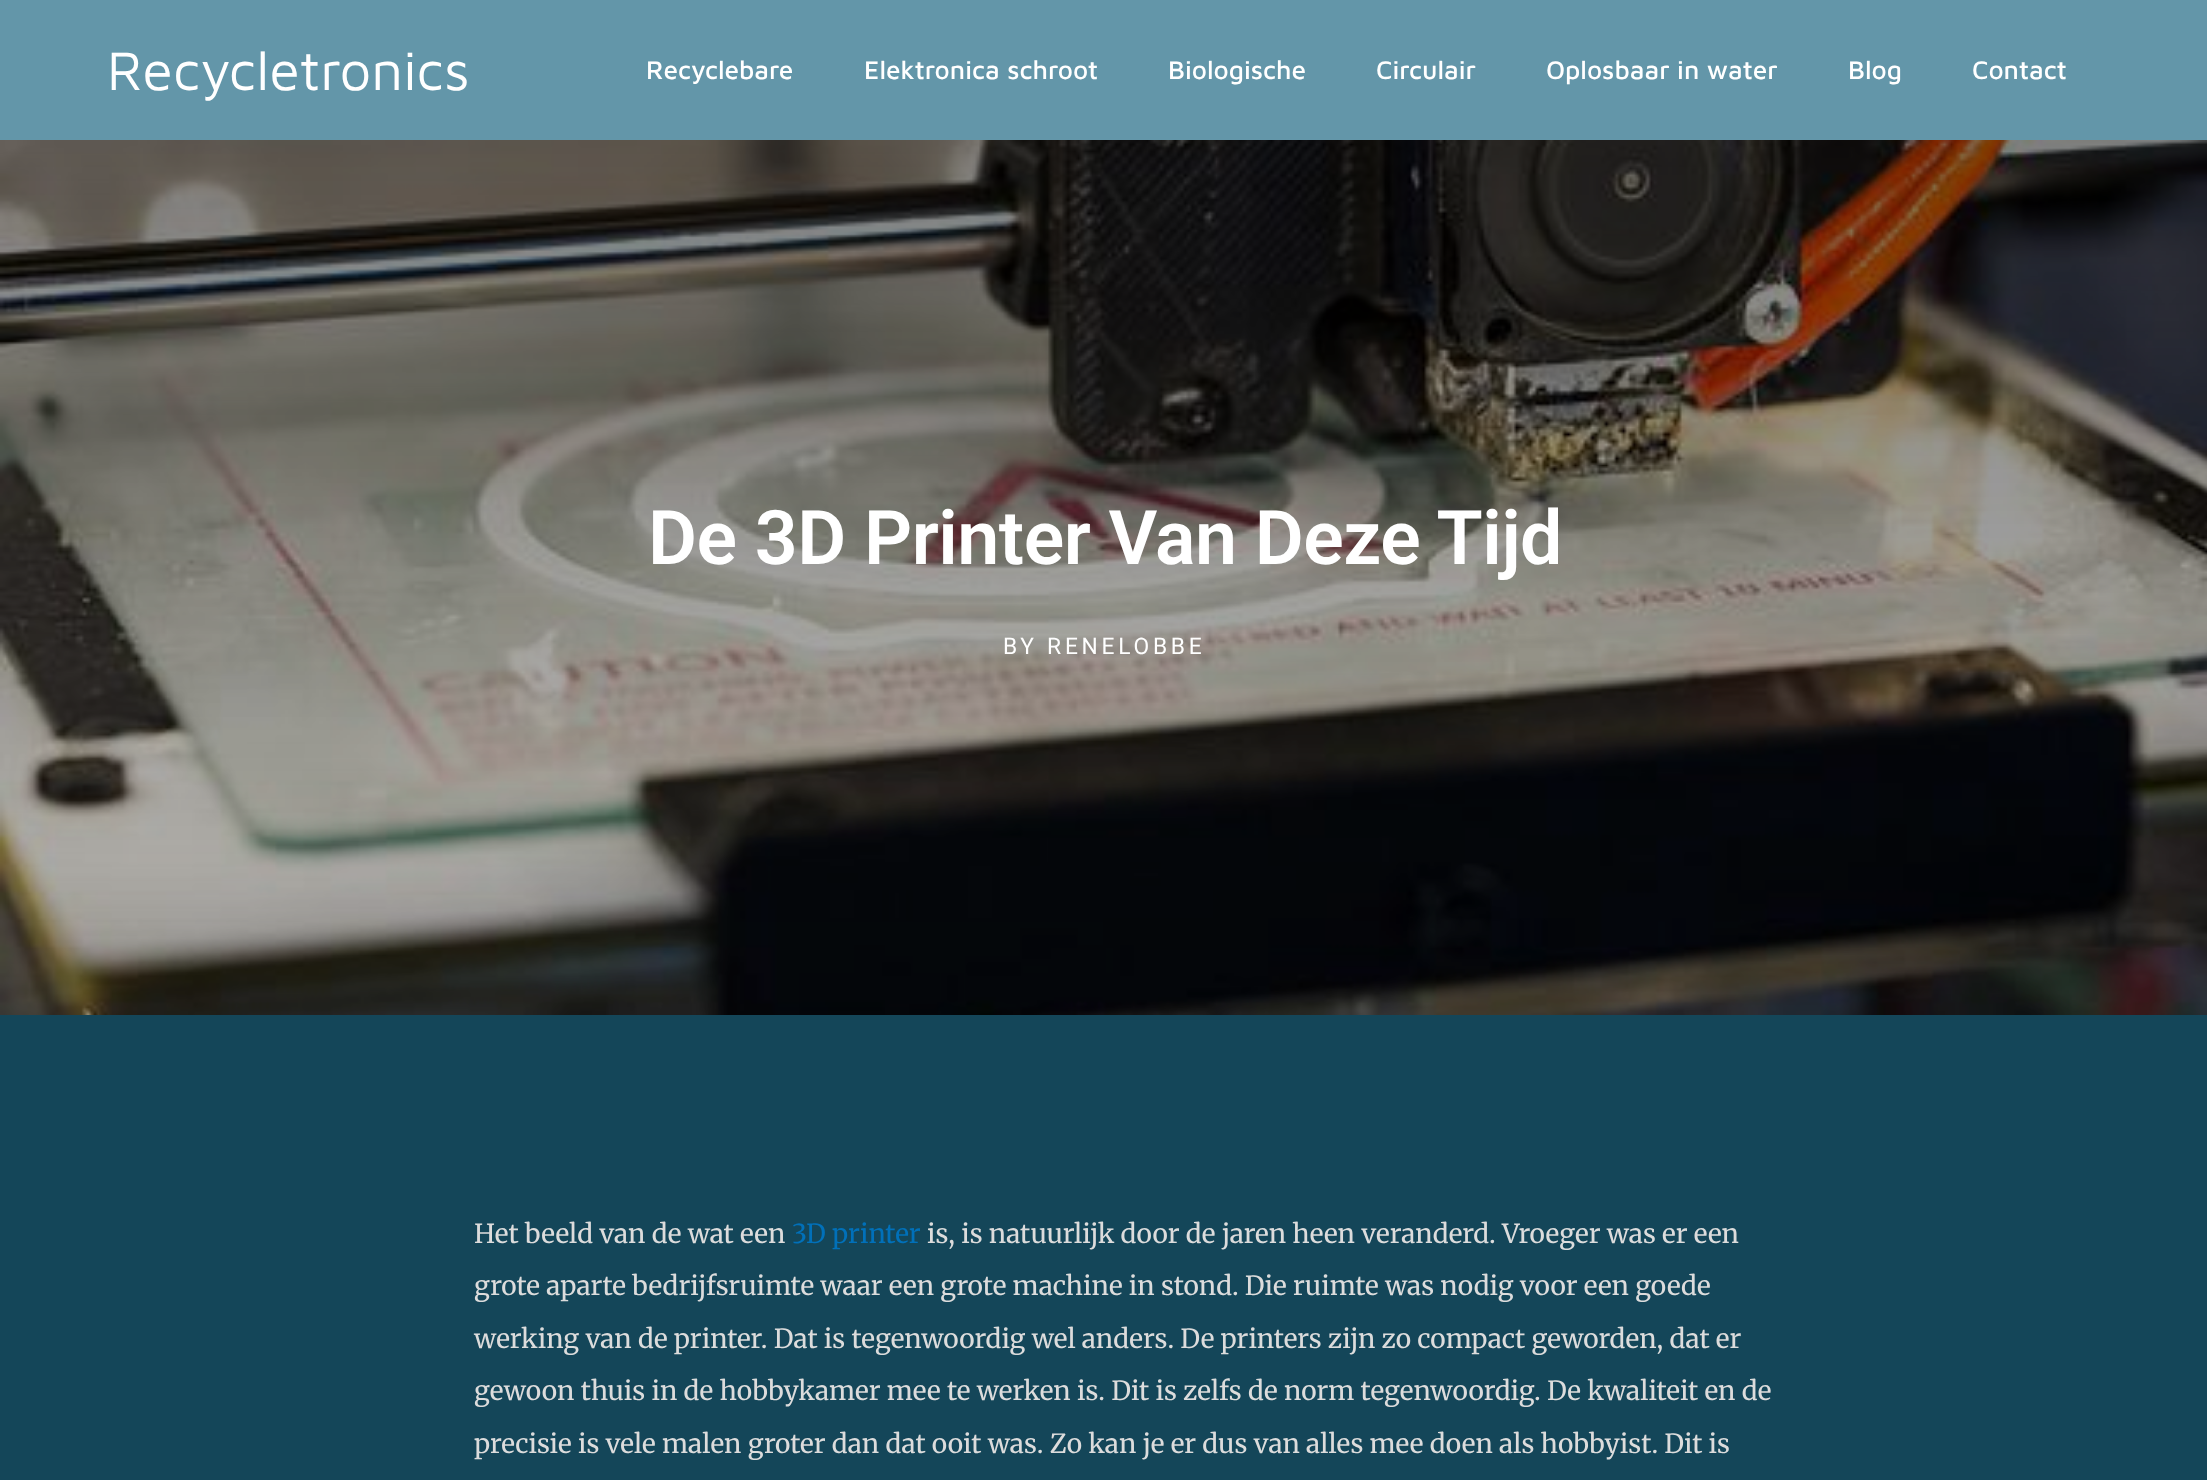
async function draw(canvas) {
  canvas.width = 2207
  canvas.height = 1480
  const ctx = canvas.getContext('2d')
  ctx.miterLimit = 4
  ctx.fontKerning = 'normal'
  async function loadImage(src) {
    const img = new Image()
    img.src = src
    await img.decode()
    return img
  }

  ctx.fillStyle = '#6396a9'
  ctx.fillRect(0, 0, 2207, 1480)
  ctx.font = '56px Maven Pro'
  ctx.fillStyle = '#fff'
  ctx.fillText('Recycletronics', 107, 90)
  ctx.font = '500 26.25px Maven Pro'
  ctx.fillText('Recyclebare', 646, 79)
  ctx.fillText('Elektronica schroot', 864, 79)
  ctx.fillText('Biologische', 1168, 79)
  ctx.fillText('Circulair', 1376, 79)
  ctx.fillText('Oplosbaar in water', 1546, 79)
  ctx.fillText('Blog', 1848, 79)
  ctx.fillText('Contact', 1972, 79)
  ctx.drawImage(await loadImage('image0.png'), 0, 140, 2207, 875)
  ctx.letterSpacing = '-0.5px'
  ctx.font = '600 75.25px Roboto'
  ctx.fillText('De 3D Printer Van Deze Tijd', 648, 564)
  ctx.letterSpacing = '3.75px'
  ctx.font = '22.75px Roboto'
  ctx.fillText('BY RENELOBBE', 1003, 654)
  ctx.fillStyle = '#144659'
  ctx.fillRect(0, 1015, 2207, 465)
  ctx.letterSpacing = '0px'
  ctx.font = '26.25px Merriweather'
  ctx.fillStyle = '#dcdcdc'
  ctx.fillText('Het beeld van de wat een', 474, 1243)
  ctx.fillStyle = '#0170b9'
  ctx.fillText('3D printer', 792, 1243)
  ctx.fillStyle = '#dcdcdc'
  ctx.fillText('is, is natuurlijk door de jaren heen veranderd. Vroeger was er een', 927, 1243)
  ctx.fillText('grote aparte bedrijfsruimte waar een grote machine in stond. Die ruimte was nodig voor een goede', 474, 1295)
  ctx.fillText('werking van de printer. Dat is tegenwoordig wel anders. De printers zijn zo compact geworden, dat er', 474, 1348)
  ctx.fillText('gewoon thuis in de hobbykamer mee te werken is. Dit is zelfs de norm tegenwoordig. De kwaliteit en de', 474, 1400)
  ctx.fillText('precisie is vele malen groter dan dat ooit was. Zo kan je er dus van alles mee doen als hobbyist. Dit is', 474, 1453)
}

draw(document.querySelector('canvas'))
